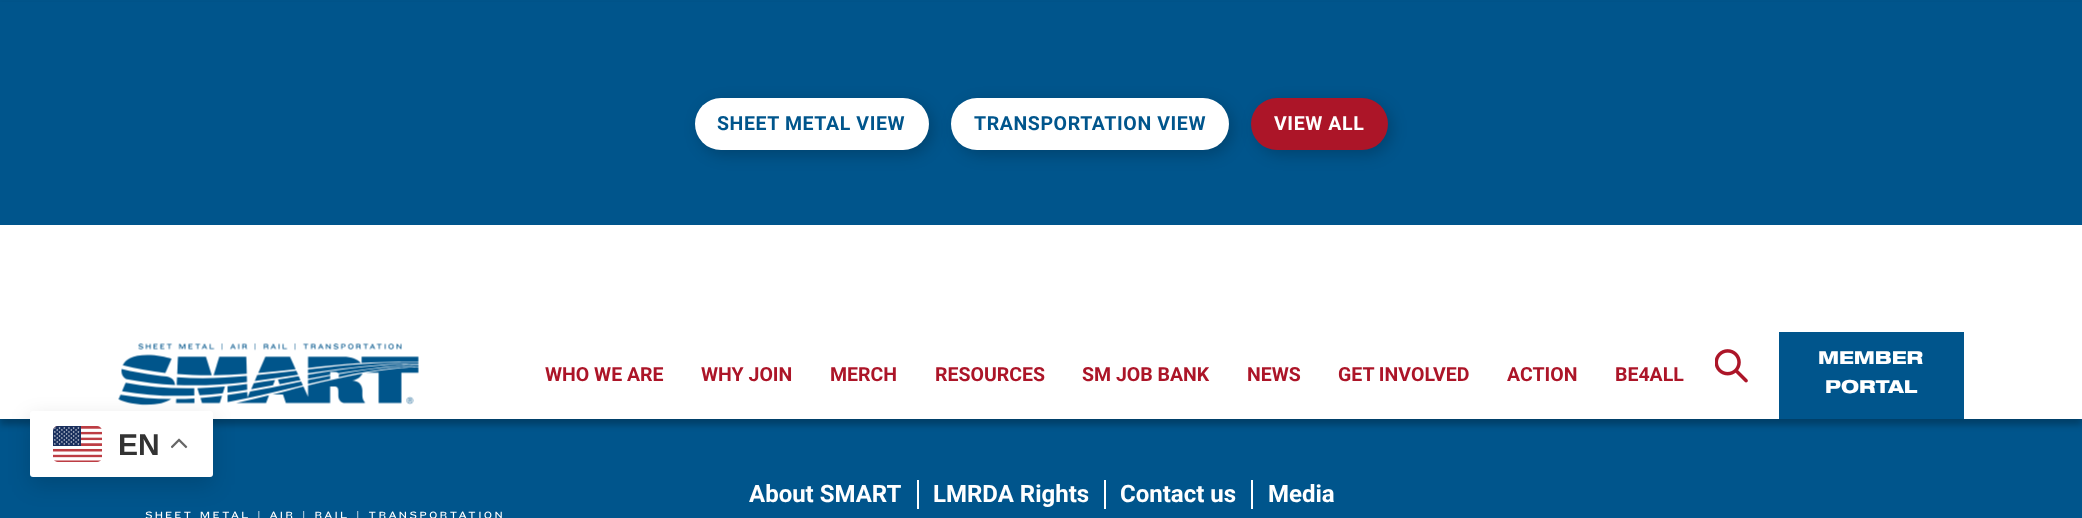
async function draw(canvas) {
  canvas.width = 2082
  canvas.height = 518
  const ctx = canvas.getContext('2d')
  ctx.miterLimit = 4
  ctx.fontKerning = 'normal'
  async function loadImage(src) {
    const img = new Image()
    img.src = src
    await img.decode()
    return img
  }

  ctx.fillStyle = '#00558c'
  ctx.fillRect(0, 0, 2082, 518)
  ctx.fillStyle = '#00000040'
  ctx.filter = 'blur(3px)'
  ctx.beginPath()
  ctx.rect(0, 6, 2082, 419)
  ctx.fill()
  ctx.filter = 'none'
  ctx.fillStyle = '#fff'
  ctx.fillRect(0, 225, 2082, 194)
  ctx.fillStyle = '#00558c'
  ctx.fillRect(0, 2, 2082, 223)
  ctx.fillStyle = '#00000033'
  ctx.filter = 'blur(7.5px)'
  ctx.beginPath()
  ctx.roundRect(699, 102, 234, 53, 26.5)
  ctx.fill()
  ctx.filter = 'none'
  ctx.fillStyle = '#fff'
  ctx.beginPath()
  ctx.roundRect(695, 98, 234, 52, 26)
  ctx.fill()
  ctx.letterSpacing = '0.6px'
  ctx.font = 'bold 19.5px Roboto'
  ctx.fillStyle = '#00558c'
  ctx.fillText('SHEET METAL VIEW', 717, 130)
  ctx.fillStyle = '#00000033'
  ctx.filter = 'blur(7.5px)'
  ctx.beginPath()
  ctx.roundRect(956, 102, 277, 53, 26.5)
  ctx.fill()
  ctx.filter = 'none'
  ctx.fillStyle = '#fff'
  ctx.beginPath()
  ctx.roundRect(951, 98, 278, 52, 26)
  ctx.fill()
  ctx.fillStyle = '#00558c'
  ctx.fillText('TRANSPORTATION VIEW', 974, 130)
  ctx.fillStyle = '#00000033'
  ctx.filter = 'blur(7.5px)'
  ctx.beginPath()
  ctx.roundRect(1256, 102, 136, 53, 26.5)
  ctx.fill()
  ctx.filter = 'none'
  ctx.fillStyle = '#ac1528'
  ctx.beginPath()
  ctx.roundRect(1251, 98, 137, 52, 26)
  ctx.fill()
  ctx.fillStyle = '#fff'
  ctx.fillText('VIEW ALL', 1274, 130)
  ctx.drawImage(await loadImage('image0.png'), 118, 343, 301, 63)
  ctx.letterSpacing = '0px'
  ctx.fillStyle = '#ac1528'
  ctx.fillText('WHO WE ARE', 545, 381)
  ctx.fillText('WHY JOIN', 701, 381)
  ctx.fillText('MERCH', 830, 381)
  ctx.fillText('RESOURCES', 935, 381)
  ctx.fillText('SM JOB BANK', 1082, 381)
  ctx.fillText('NEWS', 1247, 381)
  ctx.fillText('GET INVOLVED', 1338, 381)
  ctx.fillText('ACTION', 1507, 381)
  ctx.fillText('BE4ALL', 1615, 381)
  ctx.drawImage(await loadImage('image1.png'), 1715, 349, 33, 34)
  ctx.fillStyle = '#00558c'
  ctx.fillRect(1779, 332, 185, 87)
  ctx.font = 'bold 18px Helvetica Neue'
  ctx.fillStyle = '#fff'
  ctx.fillText('MEMBER', 1818, 364)
  ctx.fillText('PORTAL', 1825, 393)
  ctx.drawImage(await loadImage('image4.png'), 145, 511, 357, 7)
  ctx.fillStyle = '#00000026'
  ctx.filter = 'blur(11px)'
  ctx.beginPath()
  ctx.roundRect(30, 419, 183, 66, 3)
  ctx.fill()
  ctx.filter = 'none'
  ctx.fillStyle = '#fff'
  ctx.beginPath()
  ctx.roundRect(30, 411, 183, 66, 3)
  ctx.fill()
  ctx.drawImage(await loadImage('image2.png'), 53, 426, 49, 36)
  ctx.font = 'bold 30px Liberation Sans'
  ctx.fillStyle = '#333'
  ctx.fillText('EN', 118, 455)
  ctx.drawImage(await loadImage('image3.png'), 171, 438, 17, 11)
  ctx.font = 'bold 24px Roboto'
  ctx.fillStyle = '#fff'
  ctx.fillText('About SMART', 749, 502)
  ctx.fillText('LMRDA Rights', 933, 502)
  ctx.fillRect(917, 480, 2, 29)
  ctx.fillText('Contact us', 1120, 502)
  ctx.fillRect(1104, 480, 2, 29)
  ctx.fillText('Media', 1268, 502)
  ctx.fillRect(1251, 480, 2, 29)
}

draw(document.querySelector('canvas'))
